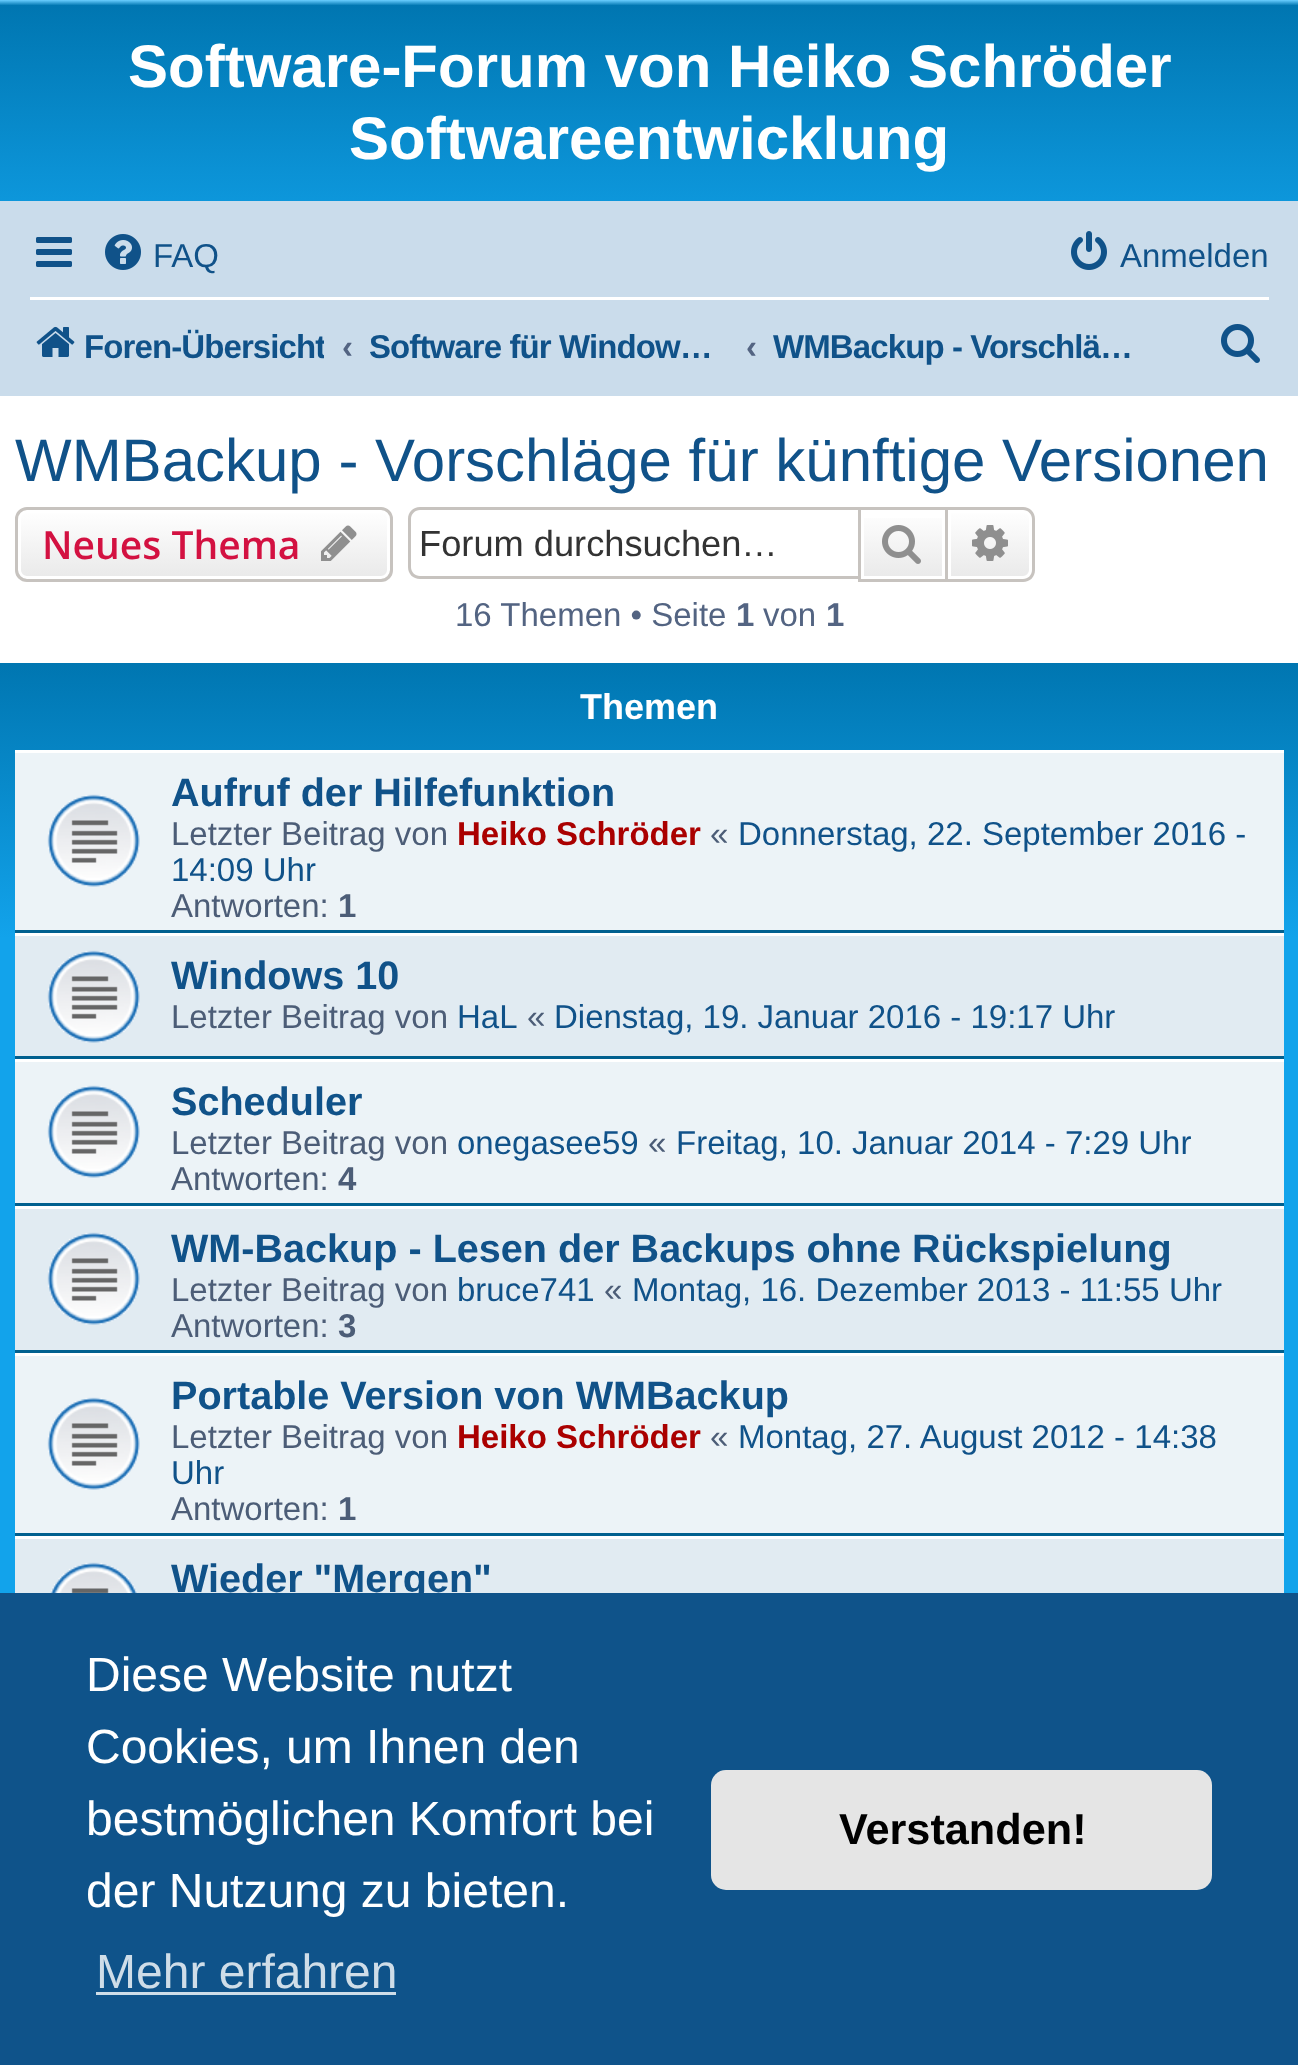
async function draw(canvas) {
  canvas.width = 1298
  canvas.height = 2065
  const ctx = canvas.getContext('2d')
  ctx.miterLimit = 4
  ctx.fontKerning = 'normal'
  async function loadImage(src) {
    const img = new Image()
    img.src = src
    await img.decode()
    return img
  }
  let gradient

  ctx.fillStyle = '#fff'
  ctx.fillRect(0, 0, 1298, 2065)
  gradient = ctx.createLinearGradient(650, 0, 650, 276)
  gradient.addColorStop(0, '#6aceff')
  gradient.addColorStop(0.02, '#0076b1')
  gradient.addColorStop(1, '#12a3eb')
  ctx.fillStyle = gradient
  ctx.fillRect(0, 0, 1298, 201)
  ctx.font = 'bold 60px Liberation Sans'
  ctx.fillStyle = '#fff'
  ctx.fillText('Software-Forum von Heiko Schröder', 128, 87)
  ctx.fillText('Softwareentwicklung', 349, 159)
  ctx.fillStyle = '#cadceb'
  ctx.fillRect(0, 201, 1298, 195)
  ctx.drawImage(await loadImage('image0.png'), 36, 237, 36, 30)
  ctx.drawImage(await loadImage('image1.png'), 105, 234, 36, 36)
  ctx.font = '33px Liberation Sans'
  ctx.fillStyle = '#105289'
  ctx.fillText('FAQ', 153, 267)
  ctx.drawImage(await loadImage('image2.png'), 1071, 231, 36, 39)
  ctx.fillText('Anmelden', 1120, 267)
  ctx.fillStyle = '#fff'
  ctx.fillRect(30, 297, 1239, 3)
  ctx.drawImage(await loadImage('image3.png'), 36, 326, 39, 31)
  ctx.save()
  ctx.beginPath()
  ctx.rect(30, 309, 294, 72)
  ctx.clip()
  ctx.letterSpacing = '-0.9px'
  ctx.font = 'bold 33px Liberation Sans'
  ctx.fillStyle = '#105289'
  ctx.fillText('Foren-Übersicht', 84, 358)
  ctx.restore()
  ctx.font = 'bold 33px Liberation Sans'
  ctx.fillStyle = '#536482'
  ctx.fillText('‹', 342, 358)
  ctx.letterSpacing = '-0.9px'
  ctx.fillStyle = '#105289'
  ctx.fillText('Software für Window…', 369, 358)
  ctx.letterSpacing = '0px'
  ctx.fillStyle = '#536482'
  ctx.fillText('‹', 746, 358)
  ctx.letterSpacing = '-0.9px'
  ctx.fillStyle = '#105289'
  ctx.fillText('WMBackup - Vorschlä…', 773, 358)
  ctx.drawImage(await loadImage('image4.png'), 1221, 324, 39, 39)
  ctx.letterSpacing = '0px'
  ctx.font = '60px Liberation Sans'
  ctx.fillText('WMBackup - Vorschläge für künftige Versionen', 15, 481)
  ctx.save()
  ctx.beginPath()
  ctx.roundRect(15, 507, 378, 75, 12)
  ctx.clip()
  gradient = ctx.createLinearGradient(204, 510, 204, 579)
  gradient.addColorStop(0, '#fff')
  gradient.addColorStop(1, '#e9e9e9')
  ctx.fillStyle = gradient
  ctx.fillRect(15, 510, 378, 69)
  ctx.restore()
  ctx.beginPath()
  ctx.roundRect(19.5, 511.5, 369, 66, 7.5)
  ctx.strokeStyle = '#fff'
  ctx.lineWidth = 3
  ctx.stroke()
  ctx.beginPath()
  ctx.roundRect(16.5, 508.5, 375, 72, 10.5)
  ctx.strokeStyle = '#c7c3bf'
  ctx.stroke()
  ctx.font = '600 39px Open Sans'
  ctx.fillStyle = '#d31141'
  ctx.fillText('Neues Thema', 42, 559)
  ctx.drawImage(await loadImage('image5.png'), 321, 525, 36, 36)
  ctx.fillStyle = '#c7c3bf'
  ctx.beginPath()
  ctx.moveTo(420, 507)
  ctx.lineTo(858, 507)
  ctx.lineTo(858, 579)
  ctx.lineTo(420, 579)
  ctx.bezierCurveTo(413, 579, 408, 574, 408, 567)
  ctx.lineTo(408, 519)
  ctx.bezierCurveTo(408, 512, 413, 507, 420, 507)
  ctx.closePath()
  ctx.moveTo(420, 510)
  ctx.lineTo(858, 510)
  ctx.lineTo(858, 576)
  ctx.lineTo(420, 576)
  ctx.bezierCurveTo(415, 576, 411, 572, 411, 567)
  ctx.lineTo(411, 519)
  ctx.bezierCurveTo(411, 514, 415, 510, 420, 510)
  ctx.closePath()
  ctx.fill('evenodd')
  ctx.font = '36.25px Liberation Sans'
  ctx.fillStyle = '#333'
  ctx.fillText('Forum durchsuchen…', 419, 556)
  gradient = ctx.createLinearGradient(903, 510, 903, 579)
  gradient.addColorStop(0, '#fff')
  gradient.addColorStop(1, '#e9e9e9')
  ctx.fillStyle = gradient
  ctx.fillRect(864, 518, 78, 58)
  ctx.strokeRect(859.5, 508.5, 87, 72)
  ctx.drawImage(await loadImage('image6.png'), 882, 525, 39, 39)
  gradient = ctx.createLinearGradient(990, 510, 990, 579)
  gradient.addColorStop(0, '#fff')
  gradient.addColorStop(1, '#e9e9e9')
  ctx.fillStyle = gradient
  ctx.beginPath()
  ctx.roundRect(949.5, 511.5, 81, 66, [0, 7.5, 7.5, 0])
  ctx.fill()
  ctx.strokeStyle = '#fff'
  ctx.stroke()
  ctx.fillStyle = '#c7c3bf'
  ctx.beginPath()
  ctx.moveTo(948, 507)
  ctx.lineTo(1023, 507)
  ctx.bezierCurveTo(1030, 507, 1035, 512, 1035, 519)
  ctx.lineTo(1035, 570)
  ctx.bezierCurveTo(1035, 577, 1030, 582, 1023, 582)
  ctx.lineTo(948, 582)
  ctx.closePath()
  ctx.moveTo(948, 510)
  ctx.lineTo(1023, 510)
  ctx.bezierCurveTo(1028, 510, 1032, 514, 1032, 519)
  ctx.lineTo(1032, 570)
  ctx.bezierCurveTo(1032, 575, 1028, 579, 1023, 579)
  ctx.lineTo(948, 579)
  ctx.closePath()
  ctx.fill('evenodd')
  ctx.drawImage(await loadImage('image7.png'), 972, 525, 36, 36)
  ctx.font = '33px Liberation Sans'
  ctx.fillStyle = '#536482'
  ctx.fillText('16 Themen • Seite', 455, 626)
  ctx.font = 'bold 33px Liberation Sans'
  ctx.fillText('1', 736, 626)
  ctx.font = '33px Liberation Sans'
  ctx.fillText('von', 763, 626)
  ctx.font = 'bold 33px Liberation Sans'
  ctx.fillText('1', 826, 626)
  gradient = ctx.createLinearGradient(649, 663, 650, 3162)
  gradient.addColorStop(0, '#6aceff')
  gradient.addColorStop(0, '#0076b1')
  gradient.addColorStop(0.11, '#12a3eb')
  gradient.addColorStop(1, '#12a3eb')
  ctx.fillStyle = gradient
  ctx.fillRect(0, 663, 1298, 930)
  ctx.font = 'bold 36px Liberation Sans'
  ctx.fillStyle = '#fff'
  ctx.fillText('Themen', 580, 719)
  ctx.fillStyle = '#ecf3f7'
  ctx.fillRect(15, 753, 1269, 177)
  ctx.fillStyle = '#fff'
  ctx.fillRect(15, 750, 1269, 3)
  ctx.fillStyle = '#00608f'
  ctx.fillRect(15, 930, 1269, 3)
  ctx.drawImage(await loadImage('image8.png'), 47, 794, 93, 93)
  ctx.font = 'bold 39.6px Liberation Sans'
  ctx.fillStyle = '#105289'
  ctx.fillText('Aufruf der Hilfefunktion', 171, 806)
  ctx.font = '33px Liberation Sans'
  ctx.fillStyle = '#4c5d77'
  ctx.fillText('Letzter Beitrag von', 171, 845)
  ctx.font = 'bold 33px Liberation Sans'
  ctx.fillStyle = '#a00'
  ctx.fillText('Heiko Schröder', 457, 845)
  ctx.font = '33px Liberation Sans'
  ctx.fillStyle = '#4c5d77'
  ctx.fillText('«', 710, 845)
  ctx.fillStyle = '#105289'
  ctx.fillText('Donnerstag, 22. September 2016 -', 738, 845)
  ctx.fillText('14:09 Uhr', 171, 881)
  ctx.fillStyle = '#4c5d77'
  ctx.fillText('Antworten:', 171, 917)
  ctx.font = 'bold 33px Liberation Sans'
  ctx.fillText('1', 338, 917)
  ctx.fillStyle = '#e1ebf2'
  ctx.fillRect(15, 936, 1269, 120)
  ctx.fillStyle = '#fff'
  ctx.fillRect(15, 933, 1269, 3)
  ctx.fillStyle = '#00608f'
  ctx.fillRect(15, 1056, 1269, 3)
  ctx.drawImage(await loadImage('image9.png'), 47, 950, 93, 93)
  ctx.font = 'bold 39.6px Liberation Sans'
  ctx.fillStyle = '#105289'
  ctx.fillText('Windows 10', 171, 989)
  ctx.font = '33px Liberation Sans'
  ctx.fillStyle = '#4c5d77'
  ctx.fillText('Letzter Beitrag von', 171, 1028)
  ctx.fillStyle = '#105289'
  ctx.fillText('HaL', 457, 1028)
  ctx.fillStyle = '#4c5d77'
  ctx.fillText('«', 527, 1028)
  ctx.fillStyle = '#105289'
  ctx.fillText('Dienstag, 19. Januar 2016 - 19:17 Uhr', 554, 1028)
  ctx.fillStyle = '#ecf3f7'
  ctx.fillRect(15, 1062, 1269, 141)
  ctx.fillStyle = '#fff'
  ctx.fillRect(15, 1059, 1269, 3)
  ctx.fillStyle = '#00608f'
  ctx.fillRect(15, 1203, 1269, 3)
  ctx.drawImage(await loadImage('image8.png'), 47, 1085, 93, 93)
  ctx.font = 'bold 39.6px Liberation Sans'
  ctx.fillStyle = '#105289'
  ctx.fillText('Scheduler', 171, 1115)
  ctx.font = '33px Liberation Sans'
  ctx.fillStyle = '#4c5d77'
  ctx.fillText('Letzter Beitrag von', 171, 1154)
  ctx.fillStyle = '#105289'
  ctx.fillText('onegasee59', 457, 1154)
  ctx.fillStyle = '#4c5d77'
  ctx.fillText('«', 648, 1154)
  ctx.fillStyle = '#105289'
  ctx.fillText('Freitag, 10. Januar 2014 - 7:29 Uhr', 676, 1154)
  ctx.fillStyle = '#4c5d77'
  ctx.fillText('Antworten:', 171, 1190)
  ctx.font = 'bold 33px Liberation Sans'
  ctx.fillText('4', 338, 1190)
  ctx.fillStyle = '#e1ebf2'
  ctx.fillRect(15, 1209, 1269, 141)
  ctx.fillStyle = '#fff'
  ctx.fillRect(15, 1206, 1269, 3)
  ctx.fillStyle = '#00608f'
  ctx.fillRect(15, 1350, 1269, 3)
  ctx.drawImage(await loadImage('image9.png'), 47, 1232, 93, 93)
  ctx.font = 'bold 39.6px Liberation Sans'
  ctx.fillStyle = '#105289'
  ctx.fillText('WM-Backup - Lesen der Backups ohne Rückspielung', 171, 1262)
  ctx.font = '33px Liberation Sans'
  ctx.fillStyle = '#4c5d77'
  ctx.fillText('Letzter Beitrag von', 171, 1301)
  ctx.fillStyle = '#105289'
  ctx.fillText('bruce741', 457, 1301)
  ctx.fillStyle = '#4c5d77'
  ctx.fillText('«', 604, 1301)
  ctx.fillStyle = '#105289'
  ctx.fillText('Montag, 16. Dezember 2013 - 11:55 Uhr', 632, 1301)
  ctx.fillStyle = '#4c5d77'
  ctx.fillText('Antworten:', 171, 1337)
  ctx.font = 'bold 33px Liberation Sans'
  ctx.fillText('3', 338, 1337)
  ctx.fillStyle = '#ecf3f7'
  ctx.fillRect(15, 1356, 1269, 177)
  ctx.fillStyle = '#fff'
  ctx.fillRect(15, 1353, 1269, 3)
  ctx.fillStyle = '#00608f'
  ctx.fillRect(15, 1533, 1269, 3)
  ctx.drawImage(await loadImage('image8.png'), 47, 1397, 93, 93)
  ctx.font = 'bold 39.6px Liberation Sans'
  ctx.fillStyle = '#105289'
  ctx.fillText('Portable Version von WMBackup', 171, 1409)
  ctx.font = '33px Liberation Sans'
  ctx.fillStyle = '#4c5d77'
  ctx.fillText('Letzter Beitrag von', 171, 1448)
  ctx.font = 'bold 33px Liberation Sans'
  ctx.fillStyle = '#a00'
  ctx.fillText('Heiko Schröder', 457, 1448)
  ctx.font = '33px Liberation Sans'
  ctx.fillStyle = '#4c5d77'
  ctx.fillText('«', 710, 1448)
  ctx.fillStyle = '#105289'
  ctx.fillText('Montag, 27. August 2012 - 14:38', 738, 1448)
  ctx.fillText('Uhr', 171, 1484)
  ctx.fillStyle = '#4c5d77'
  ctx.fillText('Antworten:', 171, 1520)
  ctx.font = 'bold 33px Liberation Sans'
  ctx.fillText('1', 338, 1520)
  ctx.fillStyle = '#e1ebf2'
  ctx.fillRect(15, 1539, 1269, 54)
  ctx.fillStyle = '#fff'
  ctx.fillRect(15, 1536, 1269, 3)
  ctx.drawImage(await loadImage('image10.png'), 50, 1562, 87, 31)
  ctx.font = 'bold 39.6px Liberation Sans'
  ctx.fillStyle = '#105289'
  ctx.fillText('Wieder "Mergen"', 171, 1592)
  ctx.fillStyle = '#0f538a'
  ctx.fillRect(0, 1593, 1298, 472)
  ctx.font = '48px Liberation Sans'
  ctx.fillStyle = '#fff'
  ctx.fillText('Diese Website nutzt', 86, 1691)
  ctx.fillText('Cookies, um Ihnen den', 86, 1763)
  ctx.fillText('bestmöglichen Komfort bei', 86, 1835)
  ctx.fillText('der Nutzung zu bieten.', 86, 1907)
  ctx.fillStyle = '#cfdde8'
  ctx.fillText('Mehr erfahren', 96, 1988)
  ctx.fillRect(96, 1992, 300, 3)
  ctx.fillStyle = '#e5e5e5'
  ctx.beginPath()
  ctx.roundRect(711, 1770, 501, 120, 15)
  ctx.fill()
  ctx.font = 'bold 43.25px Liberation Sans'
  ctx.fillStyle = '#000'
  ctx.fillText('Verstanden!', 839, 1844)
}

draw(document.querySelector('canvas'))
